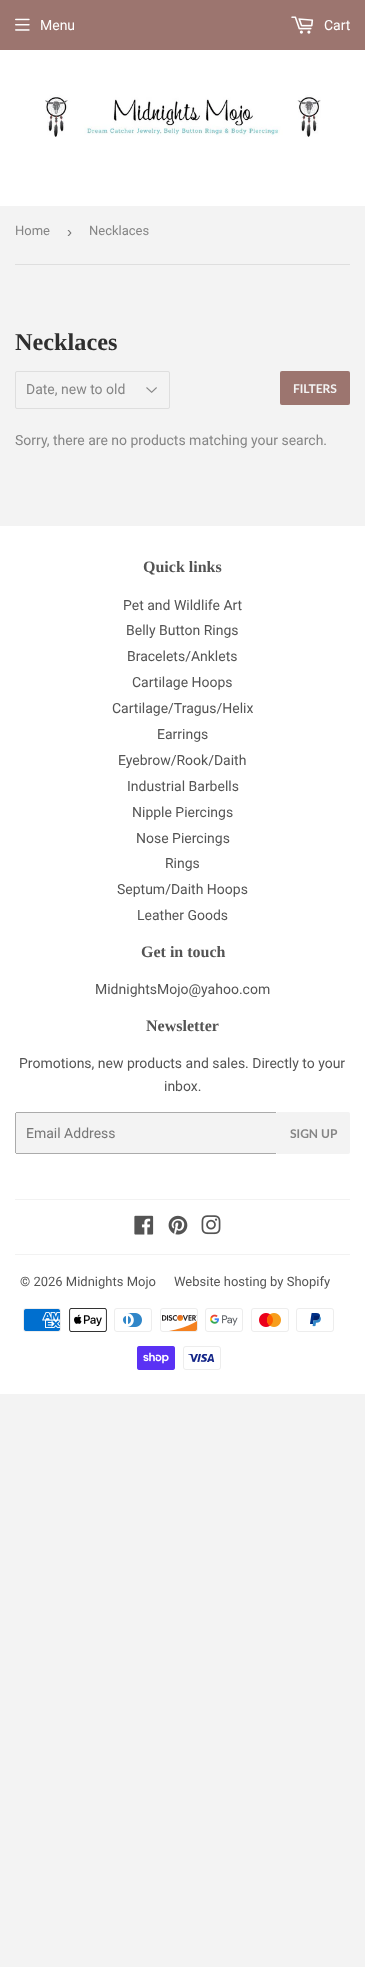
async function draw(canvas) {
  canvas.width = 365
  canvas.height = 1967
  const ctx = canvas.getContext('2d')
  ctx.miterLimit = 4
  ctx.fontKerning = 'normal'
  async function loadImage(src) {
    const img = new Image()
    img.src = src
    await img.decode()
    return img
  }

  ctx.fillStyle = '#f3f3f3'
  ctx.fillRect(0, 0, 365, 1967)
  ctx.fillStyle = '#9c756f'
  ctx.fillRect(0, 0, 365, 50)
  ctx.drawImage(await loadImage('image0.png'), 15, 18, 15, 13)
  ctx.font = '14px Roboto'
  ctx.fillStyle = '#fff'
  ctx.fillText('Menu', 40, 30)
  ctx.drawImage(await loadImage('image1.png'), 291, 16, 23, 18)
  ctx.fillText('Cart', 324, 30)
  ctx.fillRect(0, 50, 365, 156)
  ctx.drawImage(await loadImage('image2.png'), 45, 95, 276, 42)
  ctx.fillStyle = '#dedede'
  ctx.fillRect(15, 264, 335, 1)
  ctx.font = '13px Roboto'
  ctx.fillStyle = '#858585'
  ctx.fillText('Home', 15, 235)
  ctx.font = '15px Liberation Sans'
  ctx.fillStyle = '#767676'
  ctx.fillText('›', 67, 237)
  ctx.font = '13px Roboto'
  ctx.fillStyle = '#858585'
  ctx.fillText('Necklaces', 89, 235)
  ctx.font = 'bold 24.25px Liberation Serif'
  ctx.fillStyle = '#2f2f2f'
  ctx.fillText('Necklaces', 15, 350)
  ctx.drawImage(await loadImage('image3.png'), 146, 387, 11, 6)
  ctx.beginPath()
  ctx.roundRect(15.5, 371.5, 154, 37, 1.5)
  ctx.strokeStyle = '#dedede'
  ctx.stroke()
  ctx.font = '14px Roboto'
  ctx.fillStyle = '#858585'
  ctx.fillText('Date, new to old', 26, 394)
  ctx.fillStyle = '#9c756f'
  ctx.beginPath()
  ctx.roundRect(280, 371, 70, 34, 2)
  ctx.fill()
  ctx.font = 'bold 12px Lato'
  ctx.fillStyle = '#f3f3f3'
  ctx.fillText('FILTERS', 293, 393)
  ctx.font = '14px Roboto'
  ctx.fillStyle = '#858585'
  ctx.fillText('Sorry, there are no products matching your search.', 15, 445)
  ctx.fillStyle = '#fff'
  ctx.fillRect(0, 526, 365, 868)
  ctx.font = 'bold 16px Liberation Serif'
  ctx.fillStyle = '#545454'
  ctx.fillText('Quick links', 143, 572)
  ctx.font = '14px Roboto'
  ctx.fillText('Pet and Wildlife Art', 123, 610)
  ctx.fillText('Belly Button Rings', 126, 635)
  ctx.fillText('Bracelets/Anklets', 127, 661)
  ctx.fillText('Cartilage Hoops', 132, 687)
  ctx.fillText('Cartilage/Tragus/Helix', 112, 713)
  ctx.fillText('Earrings', 157, 739)
  ctx.fillText('Eyebrow/Rook/Daith', 118, 765)
  ctx.fillText('Industrial Barbells', 127, 791)
  ctx.fillText('Nipple Piercings', 132, 817)
  ctx.fillText('Nose Piercings', 136, 843)
  ctx.fillText('Rings', 165, 868)
  ctx.fillText('Septum/Daith Hoops', 117, 894)
  ctx.fillText('Leather Goods', 137, 920)
  ctx.font = 'bold 16px Liberation Serif'
  ctx.fillText('Get in touch', 141, 957)
  ctx.font = '14px Roboto'
  ctx.fillText('MidnightsMojo@yahoo.com', 95, 994)
  ctx.font = 'bold 16px Liberation Serif'
  ctx.fillText('Newsletter', 146, 1031)
  ctx.font = '14px Roboto'
  ctx.fillText('Promotions, new products and sales. Directly to your', 19, 1068)
  ctx.fillText('inbox.', 164, 1091)
  ctx.fillStyle = '#f3f3f3'
  ctx.beginPath()
  ctx.roundRect(15, 1112, 262, 42, 2)
  ctx.fill()
  ctx.fillStyle = '#ababab'
  ctx.fillRect(16, 1112, 260, 1)
  ctx.fillRect(16, 1153, 260, 1)
  ctx.fillRect(15, 1113, 1, 40)
  ctx.fillStyle = '#767676'
  ctx.fillText('Email Address', 26, 1138)
  ctx.fillStyle = '#f3f3f3'
  ctx.beginPath()
  ctx.roundRect(277, 1112, 73, 42, [0, 2, 2, 0])
  ctx.fill()
  ctx.font = 'bold 12px Lato'
  ctx.fillStyle = '#858585'
  ctx.fillText('SIGN UP', 290, 1138)
  ctx.fillStyle = '#f2f2f2'
  ctx.fillRect(15, 1199, 335, 1)
  ctx.drawImage(await loadImage('image4.png'), 134, 1215, 20, 20)
  ctx.drawImage(await loadImage('image5.png'), 168, 1215, 20, 20)
  ctx.drawImage(await loadImage('image6.png'), 201, 1215, 20, 20)
  ctx.fillRect(15, 1254, 335, 1)
  ctx.font = '13px Roboto'
  ctx.fillStyle = '#545454'
  ctx.fillText('© 2026 Midnights Mojo', 20, 1286)
  ctx.fillText('Website hosting by Shopify', 174, 1286)
  ctx.drawImage(await loadImage('image7.png'), 23, 1308, 38, 24)
  ctx.drawImage(await loadImage('image8.png'), 69, 1308, 38, 24)
  ctx.drawImage(await loadImage('image9.png'), 114, 1308, 38, 24)
  ctx.drawImage(await loadImage('image10.png'), 160, 1308, 38, 24)
  ctx.drawImage(await loadImage('image11.png'), 205, 1308, 38, 24)
  ctx.drawImage(await loadImage('image12.png'), 251, 1308, 38, 24)
  ctx.drawImage(await loadImage('image13.png'), 296, 1308, 38, 24)
  ctx.drawImage(await loadImage('image14.png'), 137, 1346, 38, 24)
  ctx.drawImage(await loadImage('image15.png'), 183, 1346, 38, 24)
}

draw(document.querySelector('canvas'))
